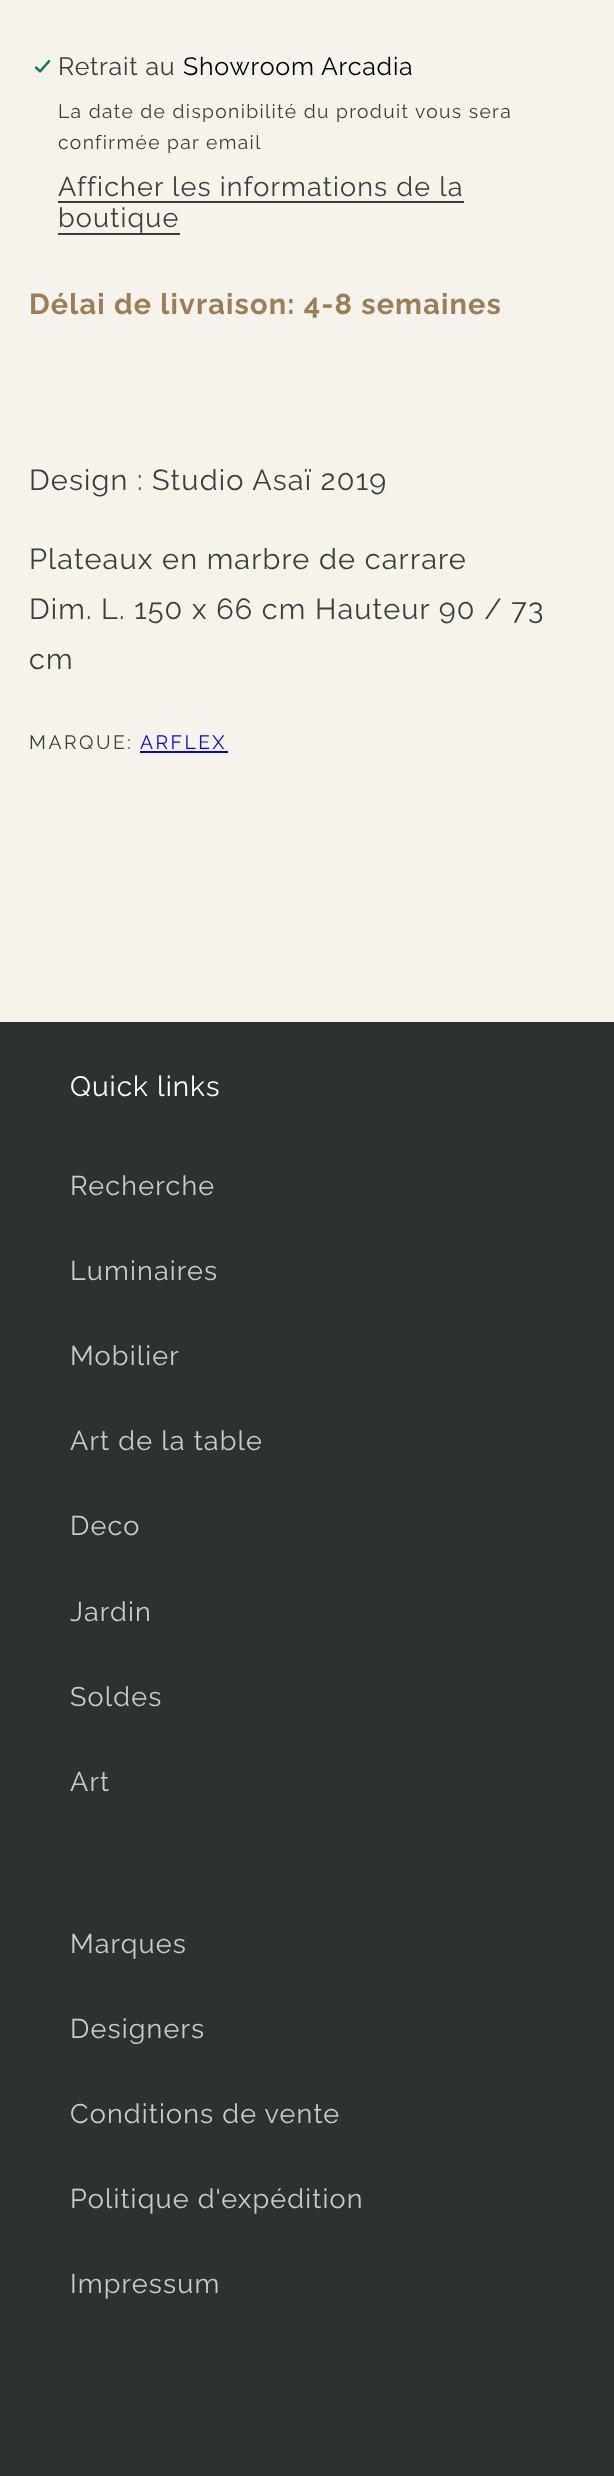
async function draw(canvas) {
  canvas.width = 614
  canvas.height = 2476
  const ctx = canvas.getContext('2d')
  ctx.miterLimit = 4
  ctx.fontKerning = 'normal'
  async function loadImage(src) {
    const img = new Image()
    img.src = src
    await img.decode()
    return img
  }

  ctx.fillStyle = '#f5f3eb'
  ctx.fillRect(0, 0, 614, 2476)
  ctx.drawImage(await loadImage('image0.png'), 33, 58, 19, 16)
  ctx.letterSpacing = '0.75px'
  ctx.font = '25px Raleway'
  ctx.fillStyle = '#3d3d3b'
  ctx.fillText('Retrait au', 58, 75)
  ctx.fillStyle = '#000'
  ctx.fillText('Showroom Arcadia', 183, 75)
  ctx.letterSpacing = '1.35px'
  ctx.font = '19.25px Raleway'
  ctx.fillStyle = '#3d3d3b'
  ctx.fillText('La date de disponibilité du produit vous sera', 58, 118)
  ctx.fillText('confirmée par email', 58, 149)
  ctx.letterSpacing = '1.15px'
  ctx.font = '27px Raleway'
  ctx.fillText('Afficher les informations de la', 58, 196)
  ctx.fillRect(58, 201, 406, 2)
  ctx.fillText('boutique', 58, 227)
  ctx.fillRect(58, 233, 122, 2)
  ctx.font = 'bold 28.9px Raleway'
  ctx.fillStyle = '#9b7e58'
  ctx.fillText('Délai de livraison: 4-8 semaines', 29, 314)
  ctx.font = '28.9px Raleway'
  ctx.fillStyle = '#3d3d3b'
  ctx.fillText('Design : Studio Asaï 2019', 29, 490)
  ctx.fillText('Plateaux en marbre de carrare', 29, 569)
  ctx.fillText('Dim. L. 150 x 66 cm Hauteur 90 / 73', 29, 619)
  ctx.fillText('cm', 29, 669)
  ctx.letterSpacing = '2.5px'
  ctx.font = '19.25px Raleway'
  ctx.fillText('MARQUE:', 29, 749)
  ctx.fillStyle = '#00e'
  ctx.fillText('ARFLEX', 140, 749)
  ctx.fillRect(140, 751, 88, 2)
  ctx.fillStyle = '#2c332f'
  ctx.fillRect(0, 1022, 614, 1454)
  ctx.letterSpacing = '1px'
  ctx.font = '28px Raleway'
  ctx.fillStyle = '#fff'
  ctx.fillText('Quick links', 70, 1096)
  ctx.letterSpacing = '1.15px'
  ctx.font = '27px Raleway'
  ctx.fillStyle = '#cacccb'
  ctx.fillText('Recherche', 70, 1195)
  ctx.fillText('Luminaires', 70, 1280)
  ctx.fillText('Mobilier', 70, 1365)
  ctx.fillText('Art de la table', 70, 1450)
  ctx.fillText('Deco', 70, 1535)
  ctx.fillText('Jardin', 70, 1621)
  ctx.fillText('Soldes', 70, 1706)
  ctx.fillText('Art', 70, 1791)
  ctx.fillText('Marques', 70, 1953)
  ctx.fillText('Designers', 70, 2038)
  ctx.fillText('Conditions de vente', 70, 2123)
  ctx.fillText('Politique d\'expédition', 70, 2208)
  ctx.fillText('Impressum', 70, 2293)
}

draw(document.querySelector('canvas'))
